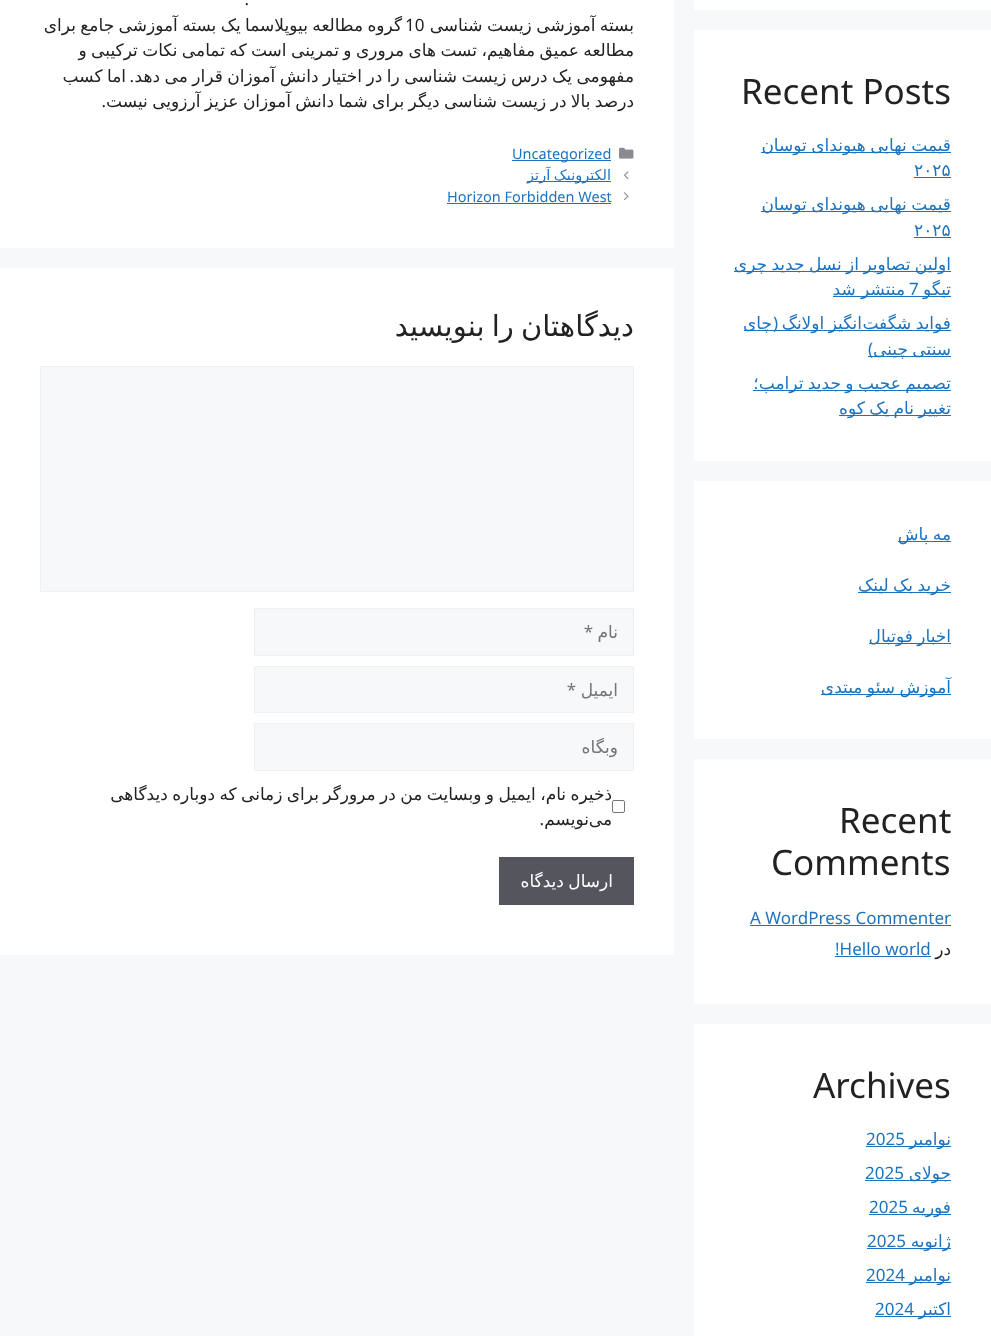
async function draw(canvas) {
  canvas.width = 991
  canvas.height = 1336
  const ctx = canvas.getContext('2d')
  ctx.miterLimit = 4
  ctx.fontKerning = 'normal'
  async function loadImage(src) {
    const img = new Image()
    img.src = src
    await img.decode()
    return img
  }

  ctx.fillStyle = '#f7f8f9'
  ctx.fillRect(0, 0, 991, 1336)
  ctx.fillStyle = '#fff'
  ctx.fillRect(694, 0, 297, 10)
  ctx.fillRect(694, 30, 297, 431)
  ctx.font = '35px Noto Sans'
  ctx.fillStyle = '#222'
  ctx.fillText('Recent Posts', 741, 104)
  ctx.fillStyle = '#1e73be'
  ctx.fillRect(761, 152, 190, 1)
  ctx.wordSpacing = '-1px'
  ctx.direction = 'rtl'
  ctx.font = '17px DejaVu Sans'
  ctx.fillText('قیمت نهایی هیوندای توسان', 951, 151)
  ctx.wordSpacing = '0px'
  ctx.direction = 'ltr'
  ctx.fillText('۲۰۲۵', 914, 176)
  ctx.fillRect(914, 177, 37, 1)
  ctx.fillRect(761, 211, 190, 1)
  ctx.wordSpacing = '-1px'
  ctx.direction = 'rtl'
  ctx.fillText('قیمت نهایی هیوندای توسان', 951, 210)
  ctx.wordSpacing = '0px'
  ctx.direction = 'ltr'
  ctx.fillText('۲۰۲۵', 914, 236)
  ctx.fillRect(914, 237, 37, 1)
  ctx.fillRect(734, 271, 217, 1)
  ctx.wordSpacing = '-1px'
  ctx.direction = 'rtl'
  ctx.fillText('اولین تصاویر از نسل جدید چری', 951, 270)
  ctx.fillRect(833, 296, 118, 1)
  ctx.wordSpacing = '0px'
  ctx.fillText('تیگو', 951, 295)
  ctx.direction = 'ltr'
  ctx.font = '17px Noto Sans'
  ctx.fillText('7', 909, 295)
  ctx.direction = 'rtl'
  ctx.font = '17px DejaVu Sans'
  ctx.fillText('منتشر شد', 905, 295)
  ctx.fillRect(744, 330, 207, 1)
  ctx.wordSpacing = '-1px'
  ctx.fillText('فواید شگفت', 951, 329)
  ctx.fillText('انگیز اولانگ', 862, 329)
  ctx.wordSpacing = '0px'
  ctx.font = '17px Noto Sans'
  ctx.fillText('(', 778, 329)
  ctx.font = '17px DejaVu Sans'
  ctx.fillText('چای', 772, 329)
  ctx.fillRect(868, 356, 83, 1)
  ctx.wordSpacing = '-1px'
  ctx.fillText('سنتی چینی', 951, 355)
  ctx.wordSpacing = '0px'
  ctx.font = '17px Noto Sans'
  ctx.fillText(')', 873, 355)
  ctx.fillRect(753, 390, 198, 1)
  ctx.wordSpacing = '-1px'
  ctx.font = '17px DejaVu Sans'
  ctx.fillText('تصمیم عجیب و جدید ترامپ؛', 951, 389)
  ctx.fillRect(839, 415, 112, 1)
  ctx.fillText('تغییر نام یک کوه', 951, 414)
  ctx.fillStyle = '#fff'
  ctx.fillRect(694, 481, 297, 258)
  ctx.fillStyle = '#1e73be'
  ctx.fillRect(898, 541, 53, 1)
  ctx.fillText('مه پاش', 951, 540)
  ctx.fillRect(858, 592, 93, 1)
  ctx.fillText('خرید بک لینک', 951, 591)
  ctx.fillRect(869, 643, 82, 1)
  ctx.fillText('اخبار فوتبال', 951, 642)
  ctx.fillRect(821, 694, 130, 1)
  ctx.fillText('آموزش سئو مبتدی', 951, 693)
  ctx.fillStyle = '#fff'
  ctx.fillRect(694, 759, 297, 245)
  ctx.wordSpacing = '0px'
  ctx.direction = 'ltr'
  ctx.font = '35px Noto Sans'
  ctx.fillStyle = '#222'
  ctx.fillText('Recent', 839, 833)
  ctx.fillText('Comments', 771, 875)
  ctx.font = '17px Noto Sans'
  ctx.fillStyle = '#1e73be'
  ctx.fillText('A WordPress Commenter', 750, 924)
  ctx.fillRect(750, 925, 201, 1)
  ctx.direction = 'rtl'
  ctx.font = '17px DejaVu Sans'
  ctx.fillStyle = '#222'
  ctx.fillText('در', 951, 955)
  ctx.direction = 'ltr'
  ctx.font = '17px Noto Sans'
  ctx.fillStyle = '#1e73be'
  ctx.fillText('!Hello world', 835, 955)
  ctx.fillRect(835, 956, 96, 1)
  ctx.fillStyle = '#fff'
  ctx.fillRect(694, 1024, 297, 312)
  ctx.font = '35px Noto Sans'
  ctx.fillStyle = '#222'
  ctx.fillText('Archives', 813, 1098)
  ctx.fillStyle = '#1e73be'
  ctx.fillRect(866, 1146, 85, 1)
  ctx.direction = 'rtl'
  ctx.font = '17px DejaVu Sans'
  ctx.fillText('نوامبر', 951, 1145)
  ctx.direction = 'ltr'
  ctx.font = '17px Noto Sans'
  ctx.fillText('2025', 866, 1145)
  ctx.fillRect(865, 1180, 86, 1)
  ctx.direction = 'rtl'
  ctx.font = '17px DejaVu Sans'
  ctx.fillText('جولای', 951, 1179)
  ctx.direction = 'ltr'
  ctx.font = '17px Noto Sans'
  ctx.fillText('2025', 865, 1179)
  ctx.fillRect(869, 1214, 82, 1)
  ctx.direction = 'rtl'
  ctx.font = '17px DejaVu Sans'
  ctx.fillText('فوریه', 951, 1213)
  ctx.direction = 'ltr'
  ctx.font = '17px Noto Sans'
  ctx.fillText('2025', 869, 1213)
  ctx.fillRect(867, 1248, 84, 1)
  ctx.direction = 'rtl'
  ctx.font = '17px DejaVu Sans'
  ctx.fillText('ژانویه', 951, 1247)
  ctx.direction = 'ltr'
  ctx.font = '17px Noto Sans'
  ctx.fillText('2025', 867, 1247)
  ctx.fillRect(866, 1282, 85, 1)
  ctx.direction = 'rtl'
  ctx.font = '17px DejaVu Sans'
  ctx.fillText('نوامبر', 951, 1281)
  ctx.direction = 'ltr'
  ctx.font = '17px Noto Sans'
  ctx.fillText('2024', 866, 1281)
  ctx.fillRect(875, 1316, 76, 1)
  ctx.direction = 'rtl'
  ctx.font = '17px DejaVu Sans'
  ctx.fillText('اکتبر', 951, 1315)
  ctx.direction = 'ltr'
  ctx.font = '17px Noto Sans'
  ctx.fillText('2024', 875, 1315)
  ctx.fillStyle = '#fff'
  ctx.fillRect(0, 0, 674, 248)
  ctx.direction = 'rtl'
  ctx.fillStyle = '#222'
  ctx.fillText('.', 249, 5)
  ctx.wordSpacing = '-1px'
  ctx.font = '17px DejaVu Sans'
  ctx.fillText('بسته آموزشی زیست شناسی', 634, 31)
  ctx.fillText('گروه مطالعه بیوپلاسما یک بسته آموزشی جامع برای', 402, 31)
  ctx.wordSpacing = '0px'
  ctx.direction = 'ltr'
  ctx.font = '17px Noto Sans'
  ctx.fillText('10', 405, 31)
  ctx.wordSpacing = '-1px'
  ctx.direction = 'rtl'
  ctx.font = '17px DejaVu Sans'
  ctx.fillText('مطالعه عمیق مفاهیم، تست های مروری و تمرینی است که تمامی نکات ترکیبی و', 634, 56)
  ctx.wordSpacing = '-0.9px'
  ctx.fillText('مفهومی یک درس زیست شناسی را در اختیار دانش آموزان قرار می دهد', 634, 82)
  ctx.wordSpacing = '0px'
  ctx.font = '17px Noto Sans'
  ctx.fillText('.', 134, 82)
  ctx.wordSpacing = '-0.9px'
  ctx.font = '17px DejaVu Sans'
  ctx.fillText('اما کسب', 126, 82)
  ctx.wordSpacing = '-1px'
  ctx.fillText('درصد بالا در زیست شناسی دیگر برای شما دانش آموزان عزیز آرزویی نیست', 634, 107)
  ctx.wordSpacing = '0px'
  ctx.font = '17px Noto Sans'
  ctx.fillText('.', 106, 107)
  ctx.drawImage(await loadImage('image0.png'), 619, 147, 15, 12)
  ctx.fillStyle = '#1e73be'
  ctx.fillRect(512, 160, 99, 1)
  ctx.direction = 'ltr'
  ctx.font = '14.5px Noto Sans'
  ctx.fillText('Uncategorized', 512, 159)
  ctx.drawImage(await loadImage('image1.png'), 624, 171, 5, 9)
  ctx.fillRect(527, 181, 84, 1)
  ctx.wordSpacing = '-1px'
  ctx.direction = 'rtl'
  ctx.font = '14.5px DejaVu Sans'
  ctx.fillText('الکترونیک آرتز', 611, 180)
  ctx.drawImage(await loadImage('image2.png'), 624, 192, 5, 9)
  ctx.wordSpacing = '0px'
  ctx.direction = 'ltr'
  ctx.font = '14.5px Noto Sans'
  ctx.fillText('Horizon Forbidden West', 447, 202)
  ctx.fillRect(447, 203, 164, 1)
  ctx.fillStyle = '#fff'
  ctx.fillRect(0, 268, 674, 687)
  ctx.wordSpacing = '-2px'
  ctx.direction = 'rtl'
  ctx.font = '29px DejaVu Sans'
  ctx.fillStyle = '#222'
  ctx.fillText('دیدگاهتان را بنویسید', 634, 336)
  ctx.fillStyle = '#f7f8f9'
  ctx.beginPath()
  ctx.rect(40.5, 366.5, 593, 225)
  ctx.fill()
  ctx.strokeStyle = '#f0f0f0'
  ctx.stroke()
  ctx.beginPath()
  ctx.rect(254.5, 608.5, 379, 47)
  ctx.fill()
  ctx.stroke()
  ctx.wordSpacing = '0px'
  ctx.font = '17px DejaVu Sans'
  ctx.fillStyle = '#757575'
  ctx.fillText('نام', 618, 638)
  ctx.font = '17px Noto Sans'
  ctx.fillText('*', 593, 638)
  ctx.fillStyle = '#f7f8f9'
  ctx.beginPath()
  ctx.rect(254.5, 666.5, 379, 46)
  ctx.fill()
  ctx.stroke()
  ctx.font = '17px DejaVu Sans'
  ctx.fillStyle = '#757575'
  ctx.fillText('ایمیل', 618, 696)
  ctx.font = '17px Noto Sans'
  ctx.fillText('*', 576, 696)
  ctx.fillStyle = '#f7f8f9'
  ctx.beginPath()
  ctx.rect(254.5, 723.5, 379, 47)
  ctx.fill()
  ctx.stroke()
  ctx.font = '17px DejaVu Sans'
  ctx.fillStyle = '#757575'
  ctx.fillText('وبگاه', 618, 753)
  ctx.beginPath()
  ctx.roundRect(612.5, 800.5, 12, 12, 1.5)
  ctx.strokeStyle = '#767676'
  ctx.stroke()
  ctx.wordSpacing = '-1px'
  ctx.fillStyle = '#222'
  ctx.fillText('ذخیره نام، ایمیل و وبسایت من در مرورگر برای زمانی که دوباره دیدگاهی', 612, 800)
  ctx.wordSpacing = '0px'
  ctx.fillText('می', 612, 825)
  ctx.fillText('نویسم', 589, 825)
  ctx.font = '17px Noto Sans'
  ctx.fillText('.', 544, 825)
  ctx.fillStyle = '#55555e'
  ctx.fillRect(499, 857, 135, 48)
  ctx.wordSpacing = '-1px'
  ctx.font = '17px DejaVu Sans'
  ctx.fillStyle = '#fff'
  ctx.fillText('ارسال دیدگاه', 613, 887)
}

draw(document.querySelector('canvas'))
